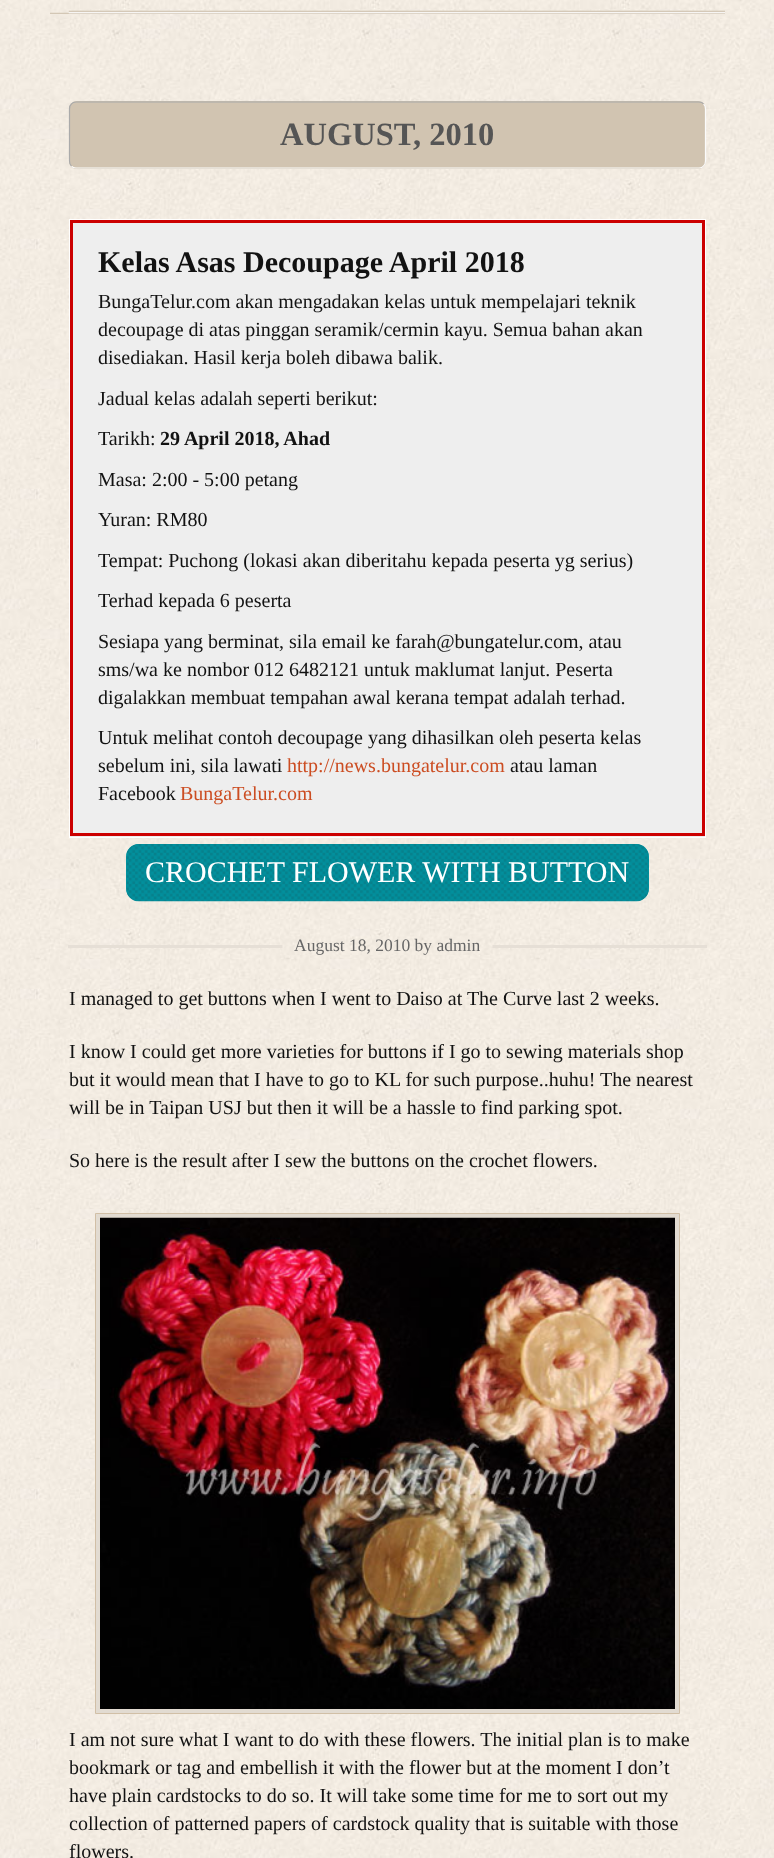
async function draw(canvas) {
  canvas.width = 774
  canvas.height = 1858
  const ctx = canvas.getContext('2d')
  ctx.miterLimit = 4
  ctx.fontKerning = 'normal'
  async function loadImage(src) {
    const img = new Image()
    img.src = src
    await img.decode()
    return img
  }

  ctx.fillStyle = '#fff'
  ctx.fillRect(0, 0, 774, 1858)
  ctx.drawImage(await loadImage('image0.png'), 0, 0, 774, 1858)
  ctx.drawImage(await loadImage('image1.png'), 50, 12, 19, 2)
  ctx.drawImage(await loadImage('image2.png'), 68, 10, 657, 4)
  ctx.fillStyle = '#d1c4b1'
  ctx.beginPath()
  ctx.roundRect(69, 101, 637, 68, 8)
  ctx.fill()
  ctx.beginPath()
  ctx.moveTo(703.5, 104)
  ctx.bezierCurveTo(705, 105, 705.5, 107, 705.5, 109)
  ctx.lineTo(705.5, 161)
  ctx.bezierCurveTo(705.5, 163, 705, 165, 703.5, 166)
  ctx.bezierCurveTo(702.5, 167.5, 700.5, 168, 699, 168)
  ctx.lineTo(76, 168)
  ctx.bezierCurveTo(74.5, 168, 72.5, 167.5, 71.5, 166)
  ctx.strokeStyle = '#fbfbfb'
  ctx.lineWidth = 1.2
  ctx.stroke()
  ctx.beginPath()
  ctx.moveTo(71.5, 166)
  ctx.bezierCurveTo(70, 165, 69.5, 163, 69.5, 161)
  ctx.lineTo(69.5, 109)
  ctx.bezierCurveTo(69.5, 107, 70, 105, 71.5, 104)
  ctx.bezierCurveTo(72.5, 102.5, 74.5, 102, 76, 102)
  ctx.lineTo(699, 102)
  ctx.bezierCurveTo(700.5, 102, 702.5, 102.5, 703.5, 104)
  ctx.strokeStyle = '#aaa'
  ctx.stroke()
  ctx.font = 'bold 32.5px Liberation Serif'
  ctx.fillStyle = '#555'
  ctx.fillText('AUGUST, 2010', 280, 145)
  ctx.fillStyle = '#eee'
  ctx.fillRect(70, 223, 635, 614)
  ctx.strokeStyle = '#fff'
  ctx.lineWidth = 1
  ctx.strokeRect(69.5, 219.5, 636, 618)
  ctx.strokeStyle = '#c00'
  ctx.lineWidth = 3
  ctx.strokeRect(71.5, 221.5, 632, 613)
  ctx.font = 'bold 30px Liberation Serif'
  ctx.fillStyle = '#121212'
  ctx.fillText('Kelas Asas Decoupage April 2018', 98, 272)
  ctx.font = '20px Liberation Serif'
  ctx.fillText('BungaTelur.com akan mengadakan kelas untuk mempelajari teknik', 98, 308)
  ctx.fillText('decoupage di atas pinggan seramik/cermin kayu. Semua bahan akan', 98, 336)
  ctx.fillText('disediakan. Hasil kerja boleh dibawa balik.', 98, 364)
  ctx.fillText('Jadual kelas adalah seperti berikut:', 98, 405)
  ctx.fillText('Tarikh:', 98, 445)
  ctx.font = 'bold 20px Liberation Serif'
  ctx.fillText('29 April 2018, Ahad', 160, 445)
  ctx.font = '20px Liberation Serif'
  ctx.fillText('Masa: 2:00 - 5:00 petang', 98, 486)
  ctx.fillText('Yuran: RM80', 98, 526)
  ctx.fillText('Tempat: Puchong (lokasi akan diberitahu kepada peserta yg serius)', 98, 567)
  ctx.fillText('Terhad kepada 6 peserta', 98, 607)
  ctx.fillText('Sesiapa yang berminat, sila email ke farah@bungatelur.com, atau', 98, 648)
  ctx.fillText('sms/wa ke nombor 012 6482121 untuk maklumat lanjut. Peserta', 98, 676)
  ctx.fillText('digalakkan membuat tempahan awal kerana tempat adalah terhad.', 98, 704)
  ctx.fillText('Untuk melihat contoh decoupage yang dihasilkan oleh peserta kelas', 98, 744)
  ctx.fillText('sebelum ini, sila lawati', 98, 772)
  ctx.fillStyle = '#cc4d22'
  ctx.fillText('http://news.bungatelur.com', 287, 772)
  ctx.fillStyle = '#121212'
  ctx.fillText('atau laman', 510, 772)
  ctx.fillText('Facebook', 98, 800)
  ctx.fillStyle = '#cc4d22'
  ctx.fillText('BungaTelur.com', 180, 800)
  ctx.fillStyle = '#0097a5'
  ctx.beginPath()
  ctx.roundRect(126, 844, 523, 57, 13)
  ctx.fill()
  ctx.drawImage(await loadImage('image3.png'), 126, 844, 523, 58)
  ctx.font = '30px Liberation Serif'
  ctx.fillStyle = '#fff'
  ctx.fillText('CROCHET FLOWER WITH BUTTON', 145, 882)
  ctx.fillStyle = '#e6dfd6'
  ctx.fillRect(68, 945, 639, 3)
  ctx.drawImage(await loadImage('image4.png'), 282, 936, 211, 19)
  ctx.font = '17.5px Liberation Serif'
  ctx.fillStyle = '#666'
  ctx.fillText('August 18, 2010 by admin', 294, 951)
  ctx.font = '20px Liberation Serif'
  ctx.fillStyle = '#121212'
  ctx.fillText('I managed to get buttons when I went to Daiso at The Curve last 2 weeks.', 69, 1005)
  ctx.fillText('I know I could get more varieties for buttons if I go to sewing materials shop', 69, 1058)
  ctx.fillText('but it would mean that I have to go to KL for such purpose..huhu! The nearest', 69, 1086)
  ctx.fillText('will be in Taipan USJ but then it will be a hassle to find parking spot.', 69, 1114)
  ctx.fillText('So here is the result after I sew the buttons on the crochet flowers.', 69, 1167)
  ctx.fillStyle = '#e2dbd1'
  ctx.beginPath()
  ctx.rect(95.5, 1213.5, 584, 500)
  ctx.fill()
  ctx.strokeStyle = '#d1bfa6'
  ctx.lineWidth = 1
  ctx.stroke()
  ctx.drawImage(await loadImage('image5.png'), 100, 1217, 575, 492)
  ctx.fillStyle = '#121212'
  ctx.fillText('I am not sure what I want to do with these flowers. The initial plan is to make', 69, 1746)
  ctx.fillText('bookmark or tag and embellish it with the flower but at the moment I don’t', 69, 1774)
  ctx.fillText('have plain cardstocks to do so. It will take some time for me to sort out my', 69, 1802)
  ctx.fillText('collection of patterned papers of cardstock quality that is suitable with those', 69, 1830)
  ctx.fillText('flowers.', 69, 1858)
}

draw(document.querySelector('canvas'))
